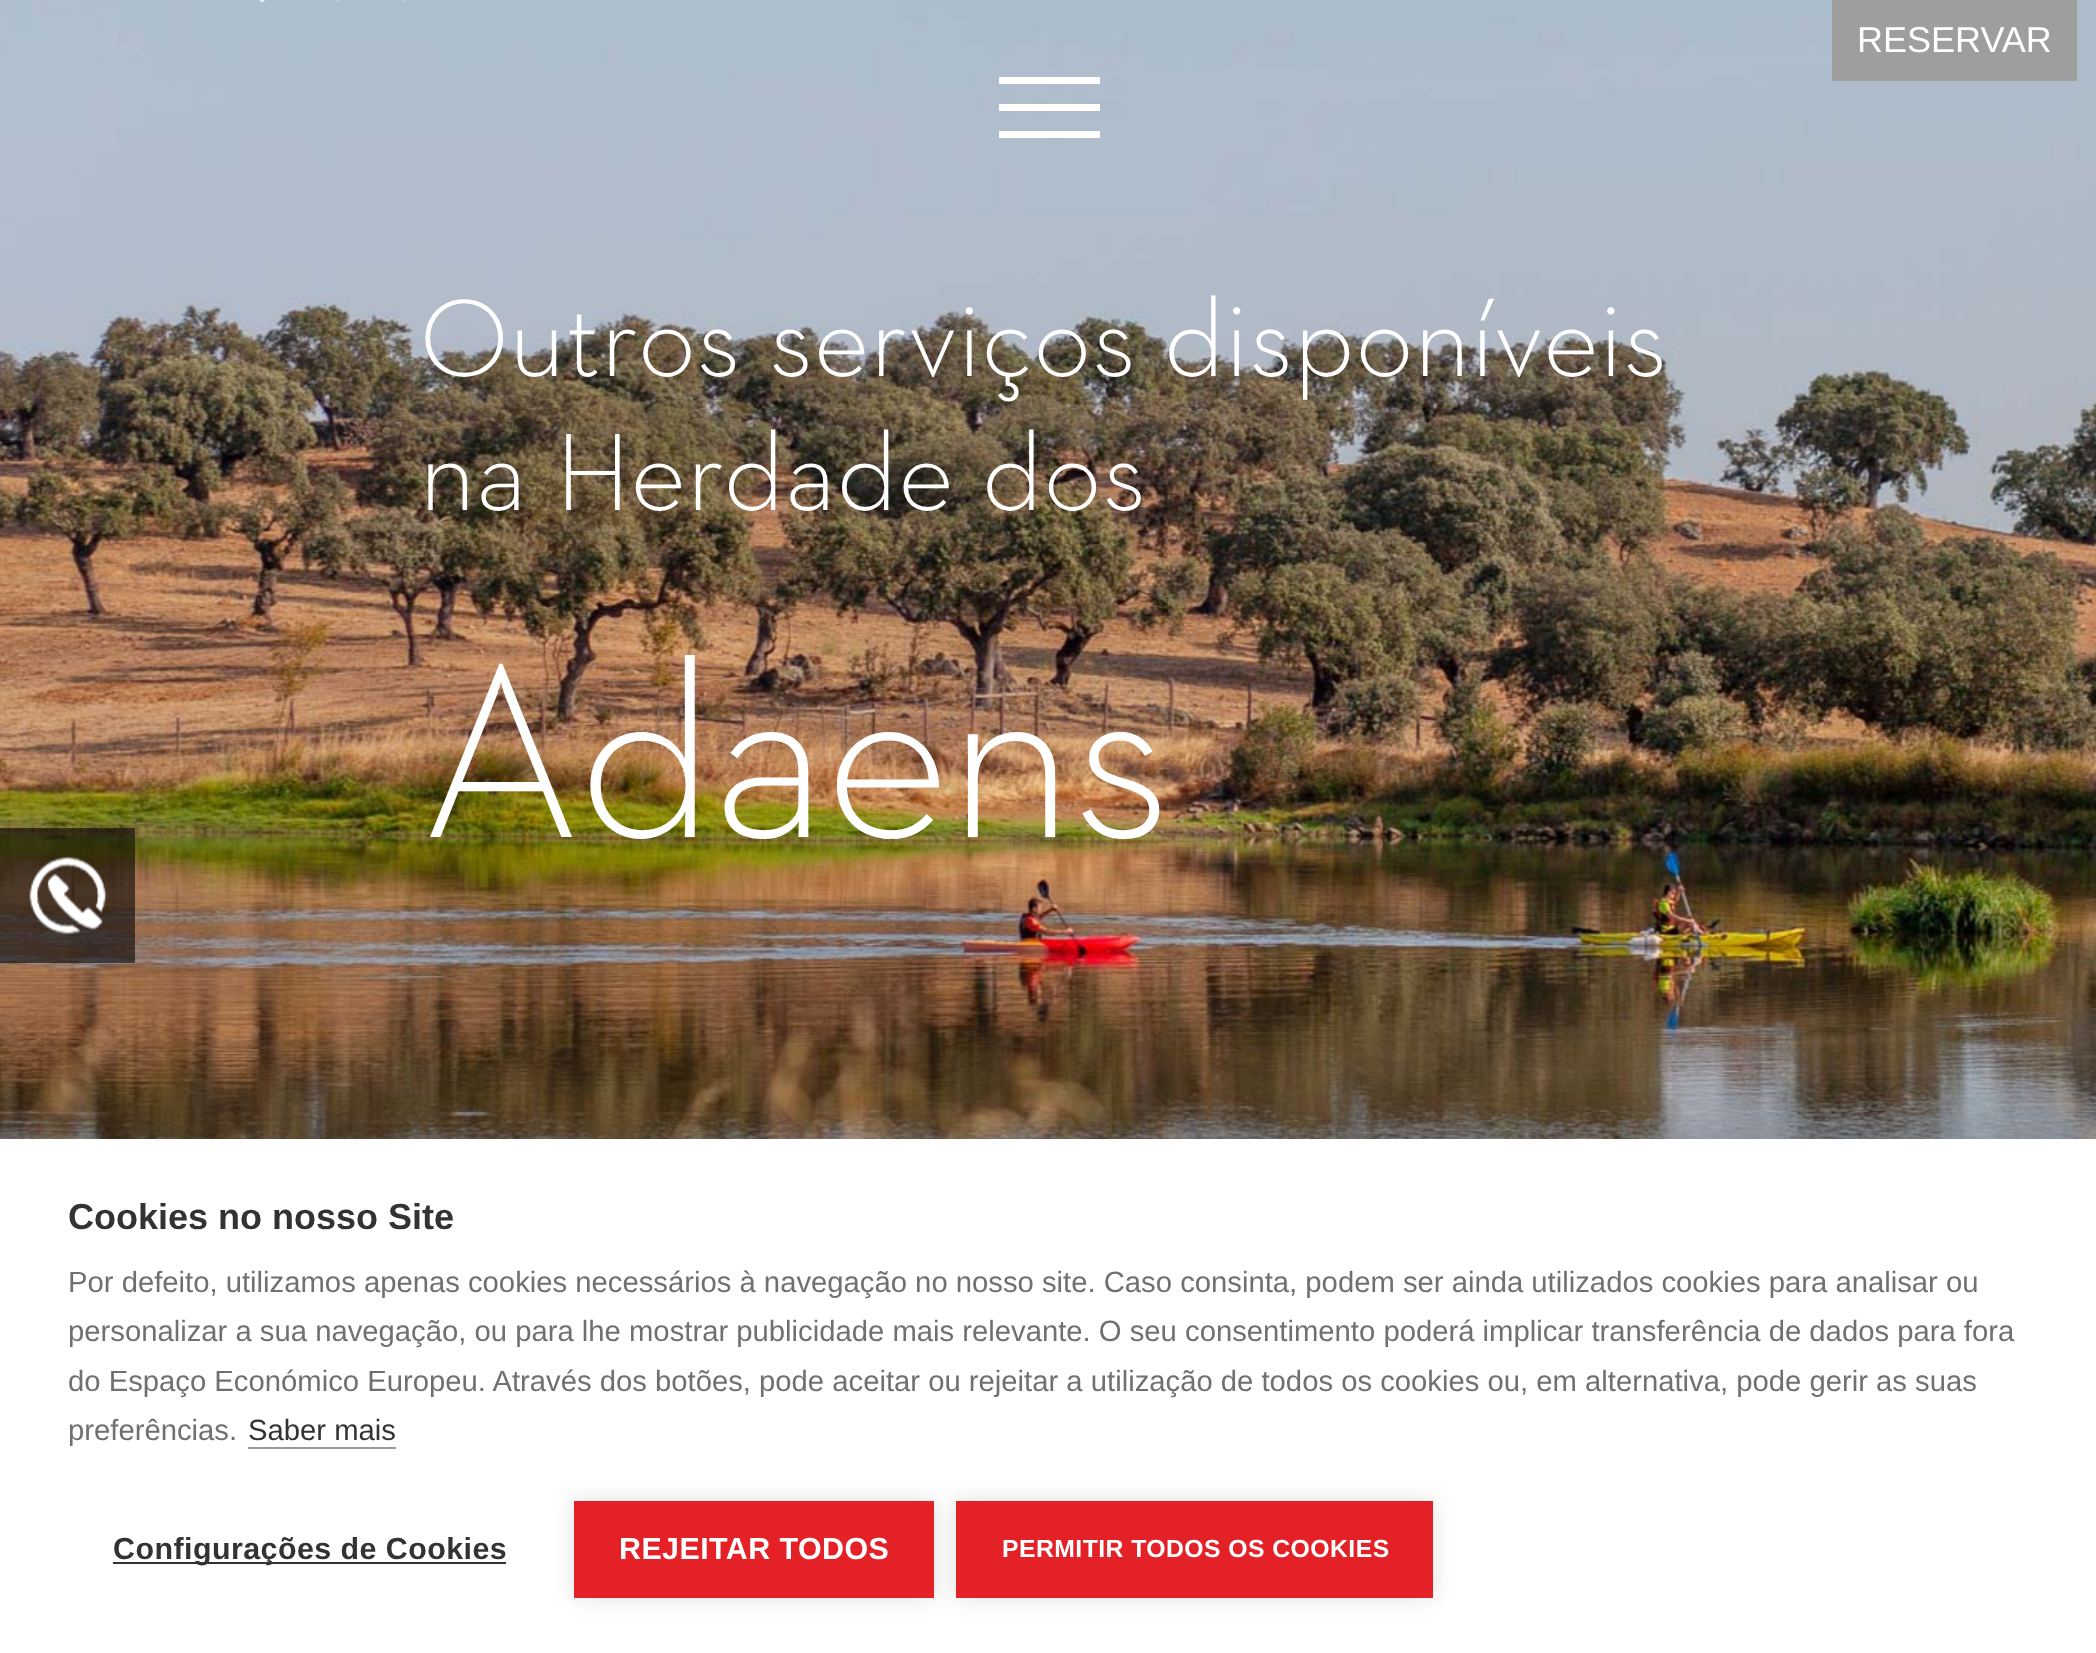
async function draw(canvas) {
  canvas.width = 2096
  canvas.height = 1653
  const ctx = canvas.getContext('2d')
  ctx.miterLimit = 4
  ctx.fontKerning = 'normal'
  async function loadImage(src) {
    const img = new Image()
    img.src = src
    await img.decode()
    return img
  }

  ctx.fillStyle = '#fff'
  ctx.fillRect(0, 0, 2096, 1653)
  ctx.drawImage(await loadImage('image1.png'), 0, 0, 2096, 1139)
  ctx.drawImage(await loadImage('image0.png'), 223, 0, 184, 2)
  ctx.fillRect(999, 77, 101, 7)
  ctx.fillRect(999, 104, 101, 7)
  ctx.fillRect(999, 131, 101, 7)
  ctx.fillStyle = '#9e9e9e'
  ctx.fillRect(1832, 0, 245, 81)
  ctx.font = '36px Liberation Sans'
  ctx.fillStyle = '#fff'
  ctx.fillText('RESERVAR', 1857, 52)
  ctx.font = '300 111.6px "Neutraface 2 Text"'
  ctx.fillText('Outros serviços disponíveis', 419, 376)
  ctx.fillText('na Herdade dos', 419, 510)
  ctx.letterSpacing = '-4.5px'
  ctx.font = '300 252px "Neutraface 2 Text"'
  ctx.fillText('Adaens', 419, 837)
  ctx.fillStyle = '#00000094'
  ctx.fillRect(0, 828, 135, 135)
  ctx.drawImage(await loadImage('image2.png'), 28, 856, 79, 79)
  ctx.fillStyle = '#0000001a'
  ctx.filter = 'blur(22.5px)'
  ctx.beginPath()
  ctx.rect(0, 1139, 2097, 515)
  ctx.fill()
  ctx.filter = 'none'
  ctx.fillStyle = '#fff'
  ctx.fillRect(0, 1139, 2096, 514)
  ctx.letterSpacing = '0px'
  ctx.font = 'bold 36px Liberation Sans'
  ctx.fillStyle = '#333'
  ctx.fillText('Cookies no nosso Site', 68, 1229)
  ctx.font = '29.25px Liberation Sans'
  ctx.fillStyle = '#707070'
  ctx.fillText('Por defeito, utilizamos apenas cookies necessários à navegação no nosso site. Caso consinta, podem ser ainda utilizados cookies para analisar ou', 68, 1292)
  ctx.fillText('personalizar a sua navegação, ou para lhe mostrar publicidade mais relevante. O seu consentimento poderá implicar transferência de dados para fora', 68, 1341)
  ctx.fillText('do Espaço Económico Europeu. Através dos botões, pode aceitar ou rejeitar a utilização de todos os cookies ou, em alternativa, pode gerir as suas', 68, 1391)
  ctx.fillText('preferências.', 68, 1440)
  ctx.fillStyle = '#333'
  ctx.fillText('Saber mais', 248, 1440)
  ctx.fillStyle = '#999'
  ctx.fillRect(248, 1447, 148, 2)
  ctx.fillStyle = '#333'
  ctx.fillRect(113, 1562, 393, 2)
  ctx.letterSpacing = '0.45px'
  ctx.font = 'bold 30.4px Liberation Sans'
  ctx.fillText('Configurações de Cookies', 113, 1559)
  ctx.fillStyle = '#0000001f'
  ctx.filter = 'blur(11px)'
  ctx.beginPath()
  ctx.rect(574, 1501, 360, 97)
  ctx.fill()
  ctx.filter = 'none'
  ctx.fillStyle = '#e42127'
  ctx.fillRect(574, 1501, 360, 97)
  ctx.fillStyle = '#fff'
  ctx.fillText('REJEITAR TODOS', 619, 1559)
  ctx.fillStyle = '#0000001f'
  ctx.filter = 'blur(11px)'
  ctx.beginPath()
  ctx.rect(956, 1501, 477, 97)
  ctx.fill()
  ctx.filter = 'none'
  ctx.fillStyle = '#e42127'
  ctx.fillRect(956, 1501, 477, 97)
  ctx.font = 'bold 24.75px Liberation Sans'
  ctx.fillStyle = '#fff'
  ctx.fillText('PERMITIR TODOS OS COOKIES', 1002, 1557)
}

draw(document.querySelector('canvas'))
